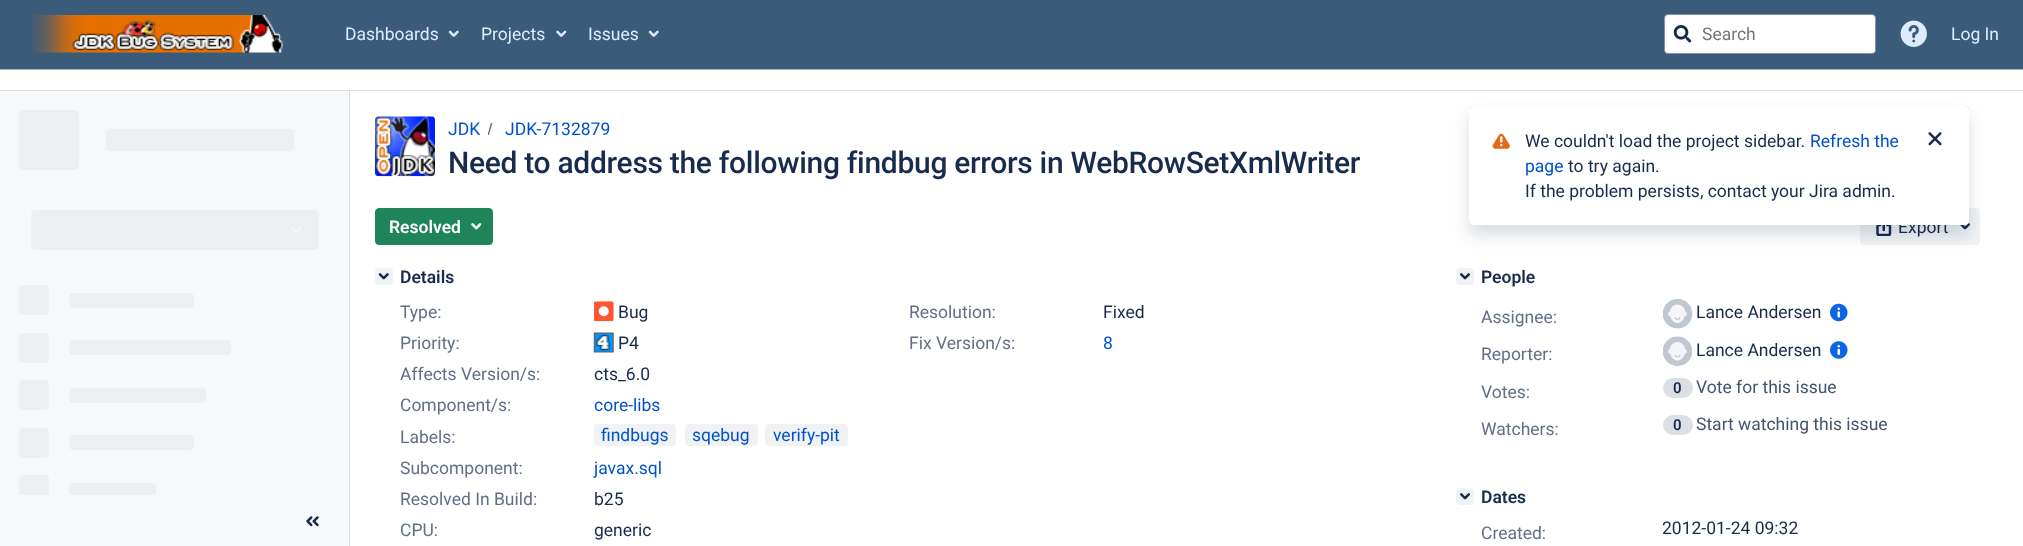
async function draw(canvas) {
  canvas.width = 2023
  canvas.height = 546
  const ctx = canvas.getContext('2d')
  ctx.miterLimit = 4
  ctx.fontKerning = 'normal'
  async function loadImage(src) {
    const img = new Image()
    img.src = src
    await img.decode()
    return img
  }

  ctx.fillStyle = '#fff'
  ctx.fillRect(0, 0, 2023, 546)
  ctx.fillStyle = '#3b5b7b'
  ctx.fillRect(0, 0, 2023, 69)
  ctx.fillStyle = '#a4b3c4'
  ctx.fillRect(0, 69, 2023, 1)
  ctx.drawImage(await loadImage('image0.png'), 31, 15, 252, 38)
  ctx.font = '17.5px Roboto'
  ctx.fillStyle = '#deebff'
  ctx.fillText('Dashboards', 345, 40)
  ctx.drawImage(await loadImage('image1.png'), 448, 30, 11, 7)
  ctx.fillText('Projects', 481, 40)
  ctx.drawImage(await loadImage('image2.png'), 556, 30, 11, 7)
  ctx.fillText('Issues', 588, 40)
  ctx.drawImage(await loadImage('image1.png'), 648, 30, 11, 7)
  ctx.fillStyle = '#fff'
  ctx.beginPath()
  ctx.roundRect(1664.5, 14.5, 211, 39, 3.5)
  ctx.fill()
  ctx.strokeStyle = '#8590a2'
  ctx.stroke()
  ctx.drawImage(await loadImage('image3.png'), 1673, 25, 19, 18)
  ctx.fillStyle = '#757575'
  ctx.fillText('Search', 1702, 40)
  ctx.drawImage(await loadImage('image4.png'), 1900, 20, 27, 27)
  ctx.fillStyle = '#deebff'
  ctx.fillText('Log In', 1951, 40)
  ctx.fillStyle = '#dde0e5'
  ctx.fillRect(0, 90, 2023, 1)
  ctx.fillStyle = '#f7f8f9'
  ctx.fillRect(0, 91, 349, 455)
  ctx.fillStyle = '#d6d9df'
  ctx.fillRect(349, 91, 1, 455)
  ctx.drawImage(await loadImage('image5.png'), 19, 110, 300, 385)
  ctx.drawImage(await loadImage('image6.png'), 306, 516, 13, 11)
  ctx.drawImage(await loadImage('image7.png'), 375, 116, 60, 61)
  ctx.fillStyle = '#0052cc'
  ctx.fillText('JDK', 448, 135)
  ctx.save()
  ctx.beginPath()
  ctx.rect(488, 123, 5, 12)
  ctx.clip()
  ctx.fillStyle = '#707070'
  ctx.beginPath()
  ctx.moveTo(489, 135)
  ctx.lineTo(492.5, 122.5)
  ctx.lineTo(491, 122.5)
  ctx.lineTo(487.5, 135)
  ctx.closePath()
  ctx.fill()
  ctx.restore()
  ctx.fillText('JDK-7132879', 505, 135)
  ctx.letterSpacing = '-0.3px'
  ctx.font = '500 30px Roboto'
  ctx.fillStyle = '#172b4d'
  ctx.fillText('Need to address the following findbug errors in WebRowSetXmlWriter', 448, 173)
  ctx.fillStyle = '#1f845a'
  ctx.beginPath()
  ctx.roundRect(375.5, 208.5, 117, 36, 3.5)
  ctx.fill()
  ctx.strokeStyle = '#1f845a'
  ctx.stroke()
  ctx.letterSpacing = '0px'
  ctx.font = '600 17.5px Roboto'
  ctx.fillStyle = '#fff'
  ctx.fillText('Resolved', 389, 233)
  ctx.drawImage(await loadImage('image8.png'), 471, 223, 11, 7)
  ctx.fillStyle = '#f0f2f4'
  ctx.beginPath()
  ctx.roundRect(1860, 208, 120, 37, 4)
  ctx.fill()
  ctx.drawImage(await loadImage('image9.png'), 1876, 225, 16, 11)
  ctx.font = '17.5px Roboto'
  ctx.fillStyle = '#172b4d'
  ctx.fillText('Export', 1898, 233)
  ctx.drawImage(await loadImage('image10.png'), 1960, 223, 10, 7)
  ctx.fillStyle = '#f0f2f4'
  ctx.beginPath()
  ctx.roundRect(375, 268, 18, 17, 4)
  ctx.fill()
  ctx.drawImage(await loadImage('image11.png'), 378, 273, 11, 7)
  ctx.font = '600 17.5px Roboto'
  ctx.fillStyle = '#172b4d'
  ctx.fillText('Details', 400, 283)
  ctx.font = '17.5px Roboto'
  ctx.fillStyle = '#626f86'
  ctx.fillText('Type:', 400, 318)
  ctx.drawImage(await loadImage('image12.png'), 594, 301, 20, 20)
  ctx.fillStyle = '#172b4d'
  ctx.fillText('Bug', 618, 318)
  ctx.fillStyle = '#626f86'
  ctx.fillText('Resolution:', 909, 318)
  ctx.fillStyle = '#172b4d'
  ctx.fillText('Fixed', 1103, 318)
  ctx.fillStyle = '#626f86'
  ctx.fillText('Priority:', 400, 349)
  ctx.drawImage(await loadImage('image13.png'), 593, 332, 21, 21)
  ctx.fillStyle = '#172b4d'
  ctx.fillText('P4', 618, 349)
  ctx.fillStyle = '#626f86'
  ctx.fillText('Fix Version/s:', 909, 349)
  ctx.fillStyle = '#0052cc'
  ctx.fillText('8', 1103, 349)
  ctx.fillStyle = '#626f86'
  ctx.fillText('Affects Version/s:', 400, 380)
  ctx.fillStyle = '#172b4d'
  ctx.fillText('cts_6.0', 594, 380)
  ctx.fillStyle = '#626f86'
  ctx.fillText('Component/s:', 400, 411)
  ctx.fillStyle = '#0052cc'
  ctx.fillText('core-libs', 594, 411)
  ctx.fillStyle = '#626f86'
  ctx.fillText('Labels:', 400, 443)
  ctx.fillStyle = '#f0f2f4'
  ctx.beginPath()
  ctx.roundRect(594, 424, 82, 22, 4)
  ctx.fill()
  ctx.fillStyle = '#0052cc'
  ctx.fillText('findbugs', 601, 441)
  ctx.fillStyle = '#f0f2f4'
  ctx.beginPath()
  ctx.roundRect(685, 424, 73, 22, 4)
  ctx.fill()
  ctx.fillStyle = '#0052cc'
  ctx.fillText('sqebug', 692, 441)
  ctx.fillStyle = '#f0f2f4'
  ctx.beginPath()
  ctx.roundRect(765, 424, 83, 22, 4)
  ctx.fill()
  ctx.fillStyle = '#0052cc'
  ctx.fillText('verify-pit', 773, 441)
  ctx.fillStyle = '#626f86'
  ctx.fillText('Subcomponent:', 400, 474)
  ctx.fillStyle = '#0052cc'
  ctx.fillText('javax.sql', 594, 474)
  ctx.fillStyle = '#626f86'
  ctx.fillText('Resolved In Build:', 400, 505)
  ctx.fillStyle = '#172b4d'
  ctx.fillText('b25', 594, 505)
  ctx.fillStyle = '#626f86'
  ctx.fillText('CPU:', 400, 536)
  ctx.fillStyle = '#172b4d'
  ctx.fillText('generic', 594, 536)
  ctx.fillStyle = '#f0f2f4'
  ctx.beginPath()
  ctx.roundRect(1456, 268, 18, 17, 4)
  ctx.fill()
  ctx.drawImage(await loadImage('image14.png'), 1460, 273, 10, 7)
  ctx.font = '600 17.5px Roboto'
  ctx.fillStyle = '#172b4d'
  ctx.fillText('People', 1481, 283)
  ctx.font = '17.5px Roboto'
  ctx.fillStyle = '#626f86'
  ctx.fillText('Assignee:', 1481, 323)
  ctx.drawImage(await loadImage('image15.png'), 1663, 299, 30, 30)
  ctx.fillStyle = '#172b4d'
  ctx.fillText('Lance Andersen', 1696, 318)
  ctx.drawImage(await loadImage('image16.png'), 1830, 303, 18, 19)
  ctx.fillStyle = '#626f86'
  ctx.fillText('Reporter:', 1481, 360)
  ctx.drawImage(await loadImage('image17.png'), 1663, 336, 30, 30)
  ctx.fillStyle = '#172b4d'
  ctx.fillText('Lance Andersen', 1696, 356)
  ctx.drawImage(await loadImage('image18.png'), 1830, 341, 18, 18)
  ctx.fillStyle = '#626f86'
  ctx.fillText('Votes:', 1481, 398)
  ctx.fillStyle = '#dcdfe4'
  ctx.beginPath()
  ctx.roundRect(1663, 378, 30, 20, 10)
  ctx.fill()
  ctx.font = '600 15px Roboto'
  ctx.fillStyle = '#172b4d'
  ctx.fillText('0', 1673, 393)
  ctx.font = '17.5px Roboto'
  ctx.fillStyle = '#44546f'
  ctx.fillText('Vote for this issue', 1696, 393)
  ctx.fillStyle = '#626f86'
  ctx.fillText('Watchers:', 1481, 435)
  ctx.fillStyle = '#dcdfe4'
  ctx.beginPath()
  ctx.roundRect(1663, 415, 30, 20, 10)
  ctx.fill()
  ctx.font = '600 15px Roboto'
  ctx.fillStyle = '#172b4d'
  ctx.fillText('0', 1673, 430)
  ctx.font = '17.5px Roboto'
  ctx.fillStyle = '#44546f'
  ctx.fillText('Start watching this issue', 1696, 430)
  ctx.fillStyle = '#f0f2f4'
  ctx.beginPath()
  ctx.roundRect(1456, 488, 18, 17, 4)
  ctx.fill()
  ctx.drawImage(await loadImage('image14.png'), 1460, 493, 10, 7)
  ctx.font = '600 17.5px Roboto'
  ctx.fillStyle = '#172b4d'
  ctx.fillText('Dates', 1481, 503)
  ctx.font = '17.5px Roboto'
  ctx.fillStyle = '#626f86'
  ctx.fillText('Created:', 1481, 539)
  ctx.fillStyle = '#172b4d'
  ctx.fillText('2012-01-24 09:32', 1662, 534)
  ctx.fillStyle = '#091e424f'
  ctx.filter = 'blur(0.5px)'
  ctx.beginPath()
  ctx.roundRect(1469, 106, 500, 119, 4)
  ctx.fill()
  ctx.filter = 'none'
  ctx.fillStyle = '#091e4226'
  ctx.filter = 'blur(7.5px)'
  ctx.beginPath()
  ctx.roundRect(1469, 116, 500, 119, 4)
  ctx.fill()
  ctx.filter = 'none'
  ctx.fillStyle = '#fff'
  ctx.beginPath()
  ctx.roundRect(1469, 106, 500, 119, 4)
  ctx.fill()
  ctx.drawImage(await loadImage('image19.png'), 1492, 133, 18, 16)
  ctx.fillStyle = '#172b4d'
  ctx.fillText('We couldn\'t load the project sidebar.', 1525, 147)
  ctx.fillStyle = '#0052cc'
  ctx.fillText('Refresh the', 1810, 147)
  ctx.drawImage(await loadImage('image20.png'), 1928, 132, 14, 14)
  ctx.fillText('page', 1525, 172)
  ctx.fillStyle = '#172b4d'
  ctx.fillText('to try again.', 1568, 172)
  ctx.fillText('If the problem persists, contact your Jira admin.', 1525, 197)
}

draw(document.querySelector('canvas'))
